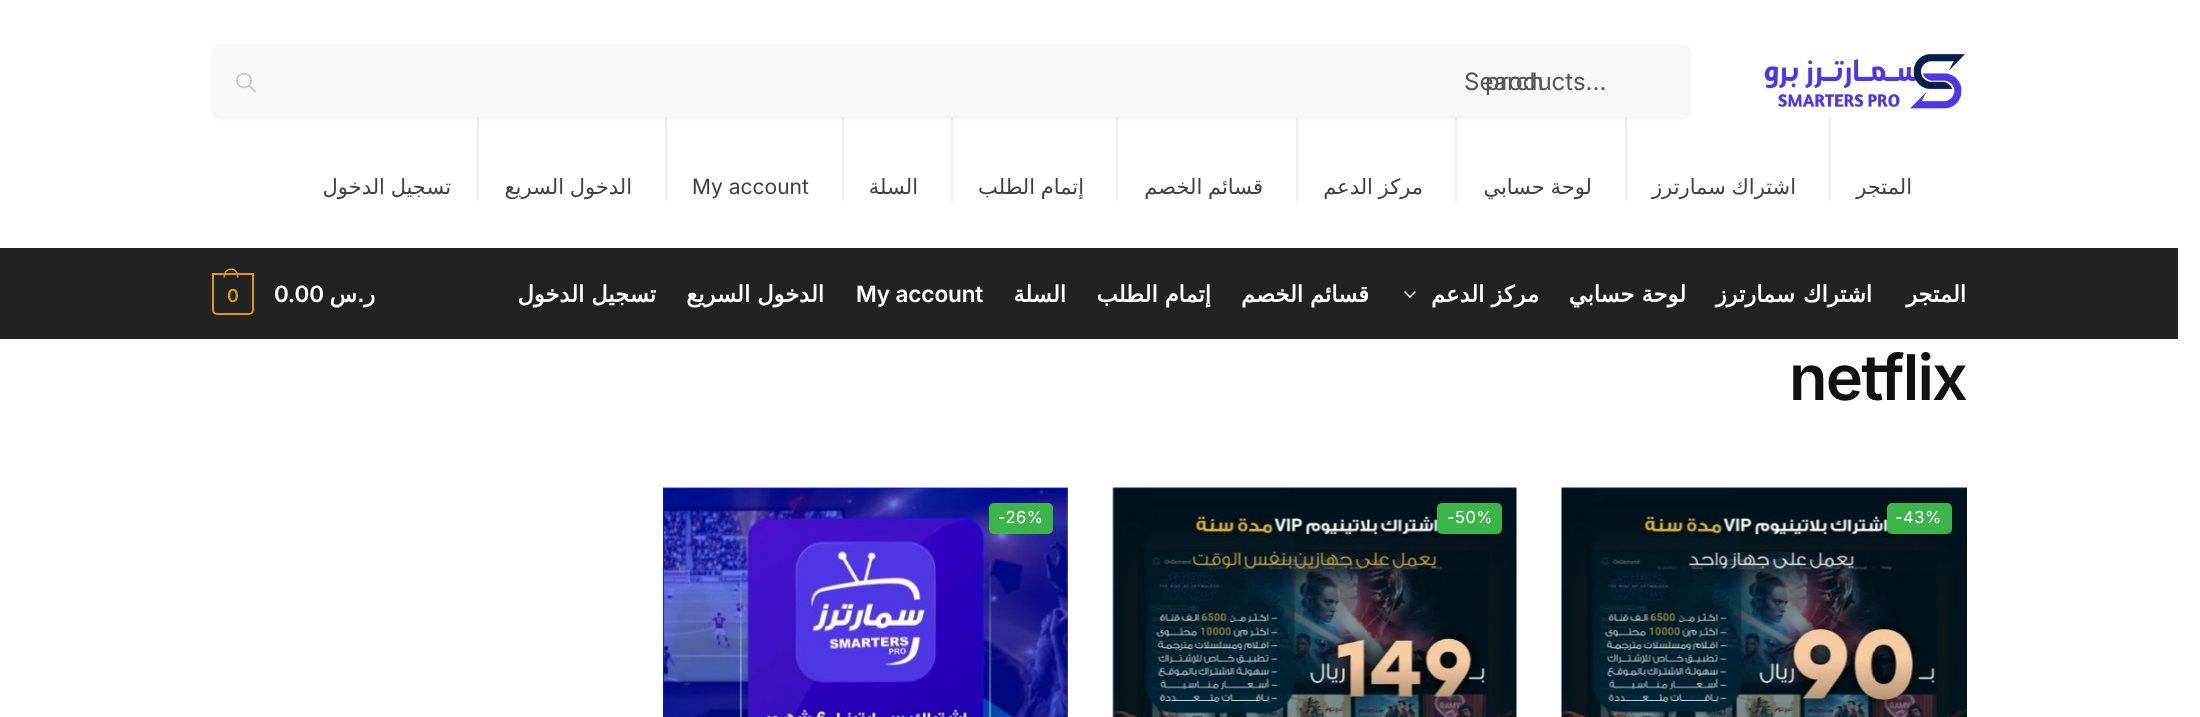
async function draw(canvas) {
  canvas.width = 2200
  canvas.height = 717
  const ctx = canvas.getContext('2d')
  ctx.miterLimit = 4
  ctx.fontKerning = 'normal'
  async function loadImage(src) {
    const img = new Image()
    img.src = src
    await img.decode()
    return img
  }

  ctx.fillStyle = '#fff'
  ctx.fillRect(0, 0, 2200, 717)
  ctx.drawImage(await loadImage('image0.png'), 1762, 53, 204, 57)
  ctx.fillStyle = '#0000000d'
  ctx.filter = 'blur(1.5px)'
  ctx.beginPath()
  ctx.roundRect(212, 47, 1479, 72, 8)
  ctx.fill()
  ctx.filter = 'none'
  ctx.fillStyle = '#f8f8f8'
  ctx.beginPath()
  ctx.roundRect(212, 45, 1479, 72, 8)
  ctx.fill()
  ctx.font = '24px Inter'
  ctx.fillStyle = '#555'
  ctx.fillText('Search', 1464, 90)
  ctx.fillText('products...', 1485, 90)
  ctx.beginPath()
  ctx.moveTo(255, 91.5)
  ctx.lineTo(249, 85.5)
  ctx.moveTo(251, 80.5)
  ctx.bezierCurveTo(251, 89.5, 237, 89.5, 237, 80.5)
  ctx.bezierCurveTo(237, 71.5, 251, 71.5, 251, 80.5)
  ctx.closePath()
  ctx.strokeStyle = '#ccc'
  ctx.lineWidth = 2
  ctx.lineCap = 'round'
  ctx.lineJoin = 'round'
  ctx.stroke()
  ctx.fillStyle = '#eee'
  ctx.fillRect(1829, 117, 2, 84)
  ctx.direction = 'rtl'
  ctx.font = '21px DejaVu Sans'
  ctx.fillStyle = '#404040'
  ctx.fillText('المتجر', 1912, 194)
  ctx.fillStyle = '#eee'
  ctx.fillRect(1625, 117, 2, 84)
  ctx.wordSpacing = '-1px'
  ctx.fillStyle = '#404040'
  ctx.fillText('اشتراك سمارترز', 1796, 194)
  ctx.fillStyle = '#eee'
  ctx.fillRect(1455, 117, 2, 84)
  ctx.fillStyle = '#404040'
  ctx.fillText('لوحة حسابي', 1592, 194)
  ctx.fillStyle = '#eee'
  ctx.fillRect(1296, 117, 2, 84)
  ctx.fillStyle = '#404040'
  ctx.fillText('مركز الدعم', 1423, 194)
  ctx.fillStyle = '#eee'
  ctx.fillRect(1116, 117, 2, 84)
  ctx.fillStyle = '#404040'
  ctx.fillText('قسائم الخصم', 1263, 194)
  ctx.fillStyle = '#eee'
  ctx.fillRect(951, 117, 2, 84)
  ctx.fillStyle = '#404040'
  ctx.fillText('إتمام الطلب', 1084, 194)
  ctx.fillStyle = '#eee'
  ctx.fillRect(842, 117, 2, 84)
  ctx.wordSpacing = '0px'
  ctx.fillStyle = '#404040'
  ctx.fillText('السلة', 918, 194)
  ctx.fillStyle = '#eee'
  ctx.fillRect(665, 117, 2, 84)
  ctx.direction = 'ltr'
  ctx.font = '21px Inter'
  ctx.fillStyle = '#404040'
  ctx.fillText('My account', 692, 194)
  ctx.fillStyle = '#eee'
  ctx.fillRect(477, 117, 2, 84)
  ctx.wordSpacing = '-1px'
  ctx.direction = 'rtl'
  ctx.font = '21px DejaVu Sans'
  ctx.fillStyle = '#404040'
  ctx.fillText('الدخول السريع', 632, 194)
  ctx.fillText('تسجيل الدخول', 451, 194)
  ctx.fillStyle = '#222'
  ctx.fillRect(0, 248, 2178, 91)
  ctx.letterSpacing = '-0.1px'
  ctx.wordSpacing = '0px'
  ctx.font = 'bold 22.5px DejaVu Sans'
  ctx.fillStyle = '#fff'
  ctx.fillText('المتجر', 1966, 302)
  ctx.wordSpacing = '1px'
  ctx.fillText('اشتراك سمارترز', 1872, 302)
  ctx.wordSpacing = '0px'
  ctx.fillText('لوحة حسابي', 1686, 302)
  ctx.fillText('مركز الدعم', 1539, 302)
  ctx.beginPath()
  ctx.moveTo(1415, 292)
  ctx.lineTo(1410, 297)
  ctx.lineTo(1405, 292)
  ctx.strokeStyle = '#fff'
  ctx.lineWidth = 1.5
  ctx.stroke()
  ctx.fillText('قسائم الخصم', 1369, 302)
  ctx.fillText('إتمام الطلب', 1211, 302)
  ctx.fillText('السلة', 1066, 302)
  ctx.direction = 'ltr'
  ctx.font = '600 22.5px Inter'
  ctx.fillText('My account', 856, 302)
  ctx.direction = 'rtl'
  ctx.font = 'bold 22.5px DejaVu Sans'
  ctx.fillText('الدخول السريع', 824, 302)
  ctx.fillText('تسجيل الدخول', 656, 302)
  ctx.fillText('ر.س', 375, 302)
  ctx.direction = 'ltr'
  ctx.font = '600 22.5px Inter'
  ctx.fillText('0.00', 274, 302)
  ctx.beginPath()
  ctx.roundRect(213, 274, 40, 40, [0, 0, 4, 4])
  ctx.strokeStyle = '#dc9814'
  ctx.lineWidth = 2
  ctx.lineJoin = 'miter'
  ctx.stroke()
  ctx.fillStyle = '#dc9814'
  ctx.beginPath()
  ctx.moveTo(231, 268.5)
  ctx.bezierCurveTo(236.5, 268.5, 238.5, 273, 238.5, 277.5)
  ctx.lineTo(223.5, 277.5)
  ctx.bezierCurveTo(223.5, 273, 225.5, 268.5, 231, 268.5)
  ctx.closePath()
  ctx.moveTo(231, 270)
  ctx.bezierCurveTo(235.5, 270, 237, 273.5, 237, 277.5)
  ctx.lineTo(225, 277.5)
  ctx.bezierCurveTo(225, 273.5, 226.5, 270, 231, 270)
  ctx.closePath()
  ctx.fill('evenodd')
  ctx.letterSpacing = '-1px'
  ctx.font = '600 18px Inter'
  ctx.fillText('0', 227, 302)
  ctx.letterSpacing = '-1.75px'
  ctx.font = '600 63px Inter'
  ctx.fillStyle = '#111'
  ctx.fillText('netflix', 1789, 400)
  ctx.drawImage(await loadImage('image1.png'), 1561, 487, 406, 230)
  ctx.fillStyle = '#3bb54a'
  ctx.beginPath()
  ctx.roundRect(1887, 503, 65, 31, 5)
  ctx.fill()
  ctx.letterSpacing = '0.5px'
  ctx.font = '16.5px Inter'
  ctx.fillStyle = '#fff'
  ctx.fillText('-43%', 1895, 523)
  ctx.drawImage(await loadImage('image2.png'), 1112, 487, 405, 230)
  ctx.fillStyle = '#3bb54a'
  ctx.beginPath()
  ctx.roundRect(1437, 503, 65, 31, 5)
  ctx.fill()
  ctx.fillStyle = '#fff'
  ctx.fillText('-50%', 1447, 523)
  ctx.drawImage(await loadImage('image3.png'), 663, 487, 405, 230)
  ctx.fillStyle = '#3bb54a'
  ctx.beginPath()
  ctx.roundRect(989, 503, 64, 31, 5)
  ctx.fill()
  ctx.fillStyle = '#fff'
  ctx.fillText('-26%', 998, 523)
}

draw(document.querySelector('canvas'))
